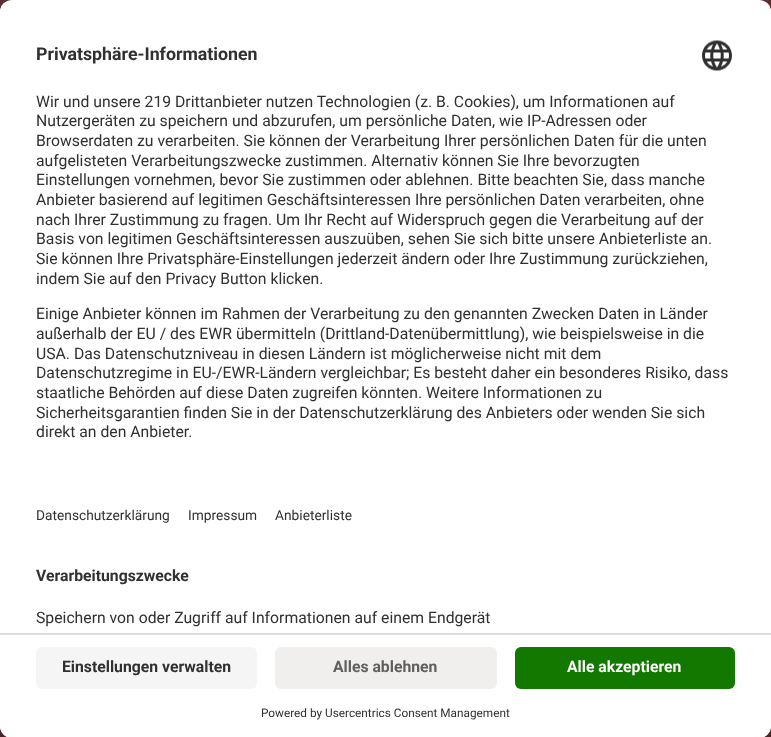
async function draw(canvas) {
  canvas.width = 771
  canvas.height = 737
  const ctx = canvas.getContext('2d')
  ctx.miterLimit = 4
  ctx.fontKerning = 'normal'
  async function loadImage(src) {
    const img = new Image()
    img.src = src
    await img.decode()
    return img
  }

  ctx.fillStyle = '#653336'
  ctx.fillRect(0, 0, 771, 737)
  ctx.fillStyle = '#622f32'
  ctx.fillRect(0, 726, 771, 11)
  ctx.fillStyle = '#0000004d'
  ctx.filter = 'blur(21px)'
  ctx.beginPath()
  ctx.roundRect(0, 30, 771, 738, 12)
  ctx.fill()
  ctx.filter = 'none'
  ctx.fillStyle = '#00000038'
  ctx.filter = 'blur(19.5px)'
  ctx.beginPath()
  ctx.roundRect(0, 8, 771, 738, 12)
  ctx.fill()
  ctx.filter = 'none'
  ctx.fillStyle = '#fff'
  ctx.beginPath()
  ctx.roundRect(0, 0, 771, 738, 12)
  ctx.fill()
  ctx.save()
  ctx.beginPath()
  ctx.roundRect(0, 0, 771, 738, 12)
  ctx.clip()
  ctx.beginPath()
  ctx.roundRect(0, 0, 771, 633, [12, 12, 0, 0])
  ctx.clip()
  ctx.fillRect(0, 2, 771, 631)
  ctx.fillRect(0, 2, 771, 547)
  ctx.restore()
  ctx.font = 'bold 17.75px Roboto'
  ctx.fillStyle = '#303030'
  ctx.fillText('Privatsphäre-Informationen', 36, 60)
  ctx.drawImage(await loadImage('image0.png'), 702, 40, 30, 31)
  ctx.font = '15.75px Roboto'
  ctx.fillText('Wir und unsere 219 Drittanbieter nutzen Technologien (z. B. Cookies), um Informationen auf', 36, 107)
  ctx.fillText('Nutzergeräten zu speichern und abzurufen, um persönliche Daten, wie IP-Adressen oder', 36, 126)
  ctx.fillText('Browserdaten zu verarbeiten. Sie können der Verarbeitung Ihrer persönlichen Daten für die unten', 36, 146)
  ctx.fillText('aufgelisteten Verarbeitungszwecke zustimmen. Alternativ können Sie Ihre bevorzugten', 36, 166)
  ctx.fillText('Einstellungen vornehmen, bevor Sie zustimmen oder ablehnen. Bitte beachten Sie, dass manche', 36, 185)
  ctx.fillText('Anbieter basierend auf legitimen Geschäftsinteressen Ihre persönlichen Daten verarbeiten, ohne', 36, 205)
  ctx.fillText('nach Ihrer Zustimmung zu fragen. Um Ihr Recht auf Widerspruch gegen die Verarbeitung auf der', 36, 225)
  ctx.fillText('Basis von legitimen Geschäftsinteressen auszuüben, sehen Sie sich bitte unsere Anbieterliste an.', 36, 244)
  ctx.fillText('Sie können Ihre Privatsphäre-Einstellungen jederzeit ändern oder Ihre Zustimmung zurückziehen,', 36, 264)
  ctx.fillText('indem Sie auf den Privacy Button klicken.', 36, 284)
  ctx.fillText('Einige Anbieter können im Rahmen der Verarbeitung zu den genannten Zwecken Daten in Länder', 36, 319)
  ctx.fillText('außerhalb der EU / des EWR übermitteln (Drittland-Datenübermittlung), wie beispielsweise in die', 36, 339)
  ctx.fillText('USA. Das Datenschutzniveau in diesen Ländern ist möglicherweise nicht mit dem', 36, 359)
  ctx.fillText('Datenschutzregime in EU-/EWR-Ländern vergleichbar; Es besteht daher ein besonderes Risiko, dass', 36, 378)
  ctx.fillText('staatliche Behörden auf diese Daten zugreifen könnten. Weitere Informationen zu', 36, 398)
  ctx.fillText('Sicherheitsgarantien finden Sie in der Datenschutzerklärung des Anbieters oder wenden Sie sich', 36, 418)
  ctx.fillText('direkt an den Anbieter.', 36, 437)
  ctx.font = '13.75px Roboto'
  ctx.fillText('Datenschutzerklärung', 36, 520)
  ctx.fillText('Impressum', 188, 520)
  ctx.fillText('Anbieterliste', 275, 520)
  ctx.font = 'bold 15.75px Roboto'
  ctx.fillText('Verarbeitungszwecke', 36, 581)
  ctx.font = '15.75px Roboto'
  ctx.fillText('Speichern von oder Zugriff auf Informationen auf einem Endgerät', 36, 623)
  ctx.fillStyle = '#fff'
  ctx.beginPath()
  ctx.moveTo(0, 633)
  ctx.lineTo(771, 633)
  ctx.lineTo(771, 726)
  ctx.bezierCurveTo(771, 732.5, 765.5, 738, 759, 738)
  ctx.lineTo(12, 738)
  ctx.bezierCurveTo(5.5, 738, 0, 732.5, 0, 726)
  ctx.closePath()
  ctx.fill()
  ctx.fillStyle = '#ddd'
  ctx.fillRect(0, 633, 771, 2)
  ctx.fillStyle = '#f5f5f5'
  ctx.beginPath()
  ctx.roundRect(36, 647, 221, 42, 6)
  ctx.fill()
  ctx.font = 'bold 15.75px Roboto'
  ctx.fillStyle = '#303030'
  ctx.fillText('Einstellungen verwalten', 62, 672)
  ctx.fillStyle = '#f1eeee'
  ctx.beginPath()
  ctx.roundRect(275, 647, 222, 42, 6)
  ctx.fill()
  ctx.fillStyle = '#605e5e'
  ctx.fillText('Alles ablehnen', 333, 672)
  ctx.fillStyle = '#137800'
  ctx.beginPath()
  ctx.roundRect(515, 647, 220, 42, 6)
  ctx.fill()
  ctx.fillStyle = '#fafafa'
  ctx.fillText('Alle akzeptieren', 567, 672)
  ctx.font = '11.8px Roboto'
  ctx.fillStyle = '#303030'
  ctx.fillText('Powered by Usercentrics Consent Management', 261, 717)
}

draw(document.querySelector('canvas'))
